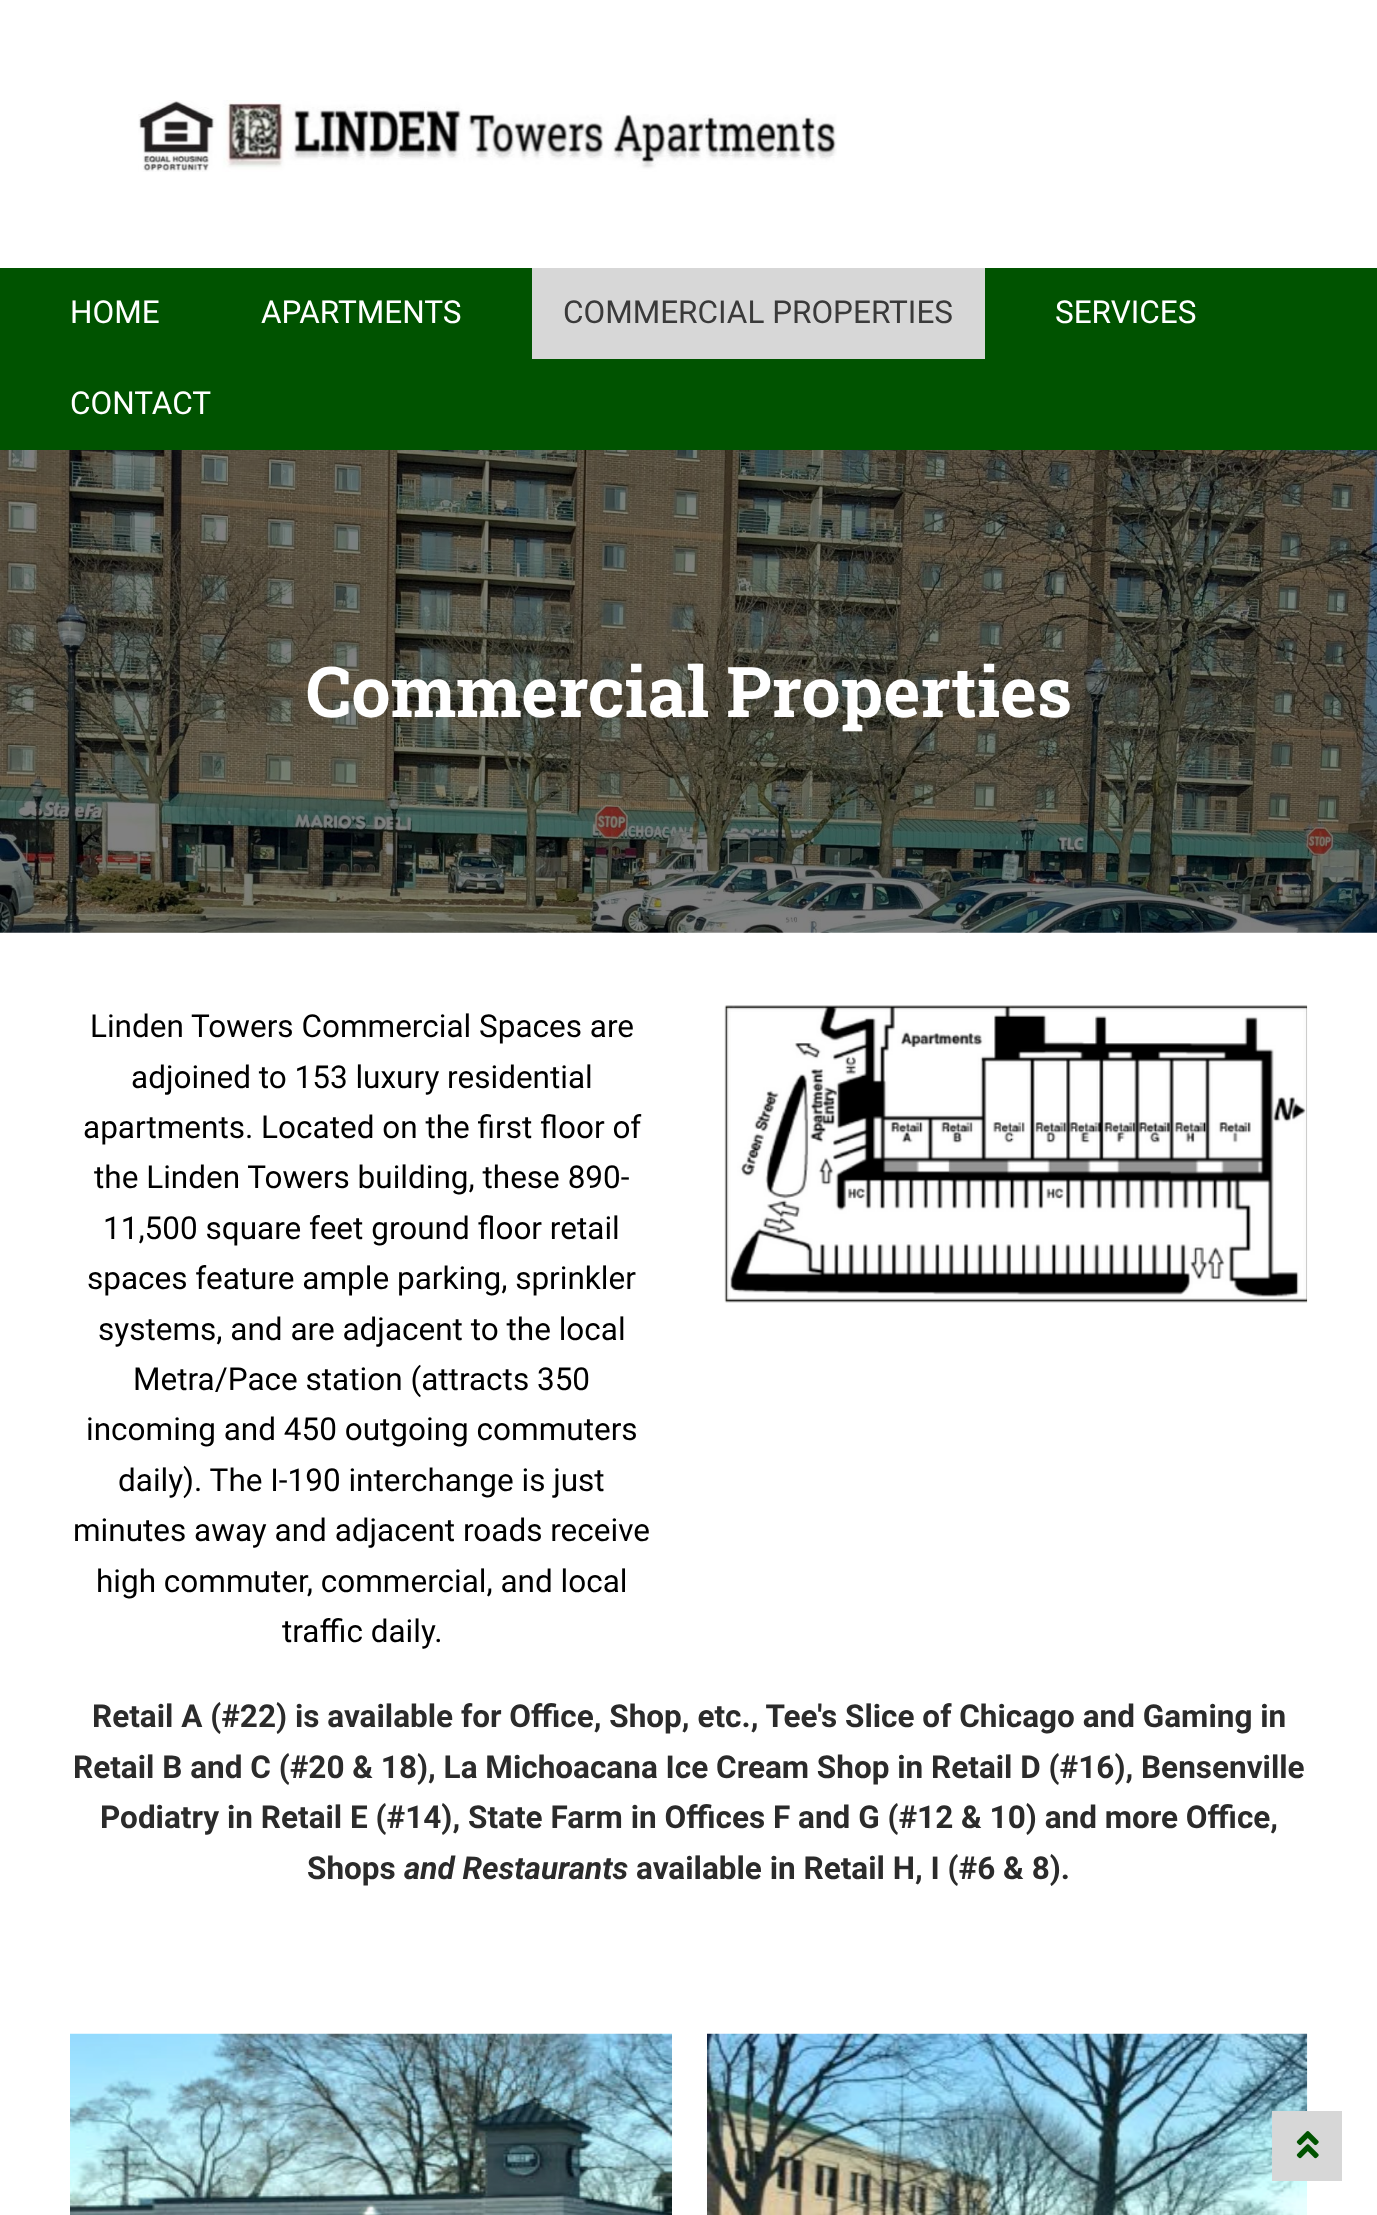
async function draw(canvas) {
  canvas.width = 1377
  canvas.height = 2215
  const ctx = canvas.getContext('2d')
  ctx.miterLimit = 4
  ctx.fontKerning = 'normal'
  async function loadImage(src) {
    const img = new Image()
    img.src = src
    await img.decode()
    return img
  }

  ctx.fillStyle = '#fff'
  ctx.fillRect(0, 0, 1377, 2215)
  ctx.drawImage(await loadImage('image0.png'), 138, 100, 699, 72)
  ctx.fillStyle = '#005300'
  ctx.fillRect(0, 268, 1377, 182)
  ctx.font = '31.5px Roboto'
  ctx.fillStyle = '#fff'
  ctx.fillText('HOME', 70, 323)
  ctx.fillText('APARTMENTS', 261, 323)
  ctx.fillStyle = '#d7d7d7'
  ctx.fillRect(532, 268, 453, 91)
  ctx.fillStyle = '#3a3a3a'
  ctx.fillText('COMMERCIAL PROPERTIES', 563, 323)
  ctx.fillStyle = '#fff'
  ctx.fillText('SERVICES', 1055, 323)
  ctx.fillText('CONTACT', 70, 414)
  ctx.drawImage(await loadImage('image1.png'), 0, 450, 1377, 483)
  ctx.font = 'bold 70px Roboto Slab'
  ctx.fillText('Commercial Properties', 306, 717)
  ctx.font = '31.5px Roboto'
  ctx.fillStyle = '#000'
  ctx.fillText('Linden Towers Commercial Spaces are', 90, 1037)
  ctx.fillText('adjoined to 153 luxury residential', 131, 1088)
  ctx.fillText('apartments. Located on the first floor of', 83, 1138)
  ctx.fillText('the Linden Towers building, these 890-', 94, 1188)
  ctx.fillText('11,500 square feet ground floor retail', 103, 1239)
  ctx.fillText('spaces feature ample parking, sprinkler', 87, 1289)
  ctx.fillText('systems, and are adjacent to the local', 98, 1340)
  ctx.fillText('Metra/Pace station (attracts 350', 133, 1390)
  ctx.fillText('incoming and 450 outgoing commuters', 86, 1440)
  ctx.fillText('daily). The I-190 interchange is just', 118, 1491)
  ctx.fillText('minutes away and adjacent roads receive', 73, 1541)
  ctx.fillText('high commuter, commercial, and local', 96, 1592)
  ctx.fillText('traffic daily.', 282, 1642)
  ctx.drawImage(await loadImage('image2.png'), 724, 1005, 584, 298)
  ctx.font = 'bold 31.5px Roboto'
  ctx.fillStyle = '#2b2b2b'
  ctx.fillText('Retail A (#22) is available for Office, Shop, etc., Tee\'s Slice of Chicago and Gaming in', 92, 1727)
  ctx.fillText('Retail B and C (#20 & 18), La Michoacana Ice Cream Shop in Retail D (#16), Bensenville', 73, 1778)
  ctx.fillText('Podiatry in Retail E (#14), State Farm in Offices F and G (#12 & 10) and more Office,', 100, 1828)
  ctx.fillText('Shops', 307, 1879)
  ctx.font = 'italic bold 31.5px Roboto'
  ctx.fillText('and Restaurants', 404, 1879)
  ctx.font = 'bold 31.5px Roboto'
  ctx.fillText('available in Retail H, I (#6 & 8).', 636, 1879)
  ctx.drawImage(await loadImage('image3.png'), 70, 2033, 602, 182)
  ctx.drawImage(await loadImage('image4.png'), 707, 2033, 601, 182)
  ctx.fillStyle = '#d7d7d7'
  ctx.fillRect(1272, 2111, 70, 70)
  ctx.drawImage(await loadImage('image5.png'), 1296, 2131, 23, 28)
}

draw(document.querySelector('canvas'))
